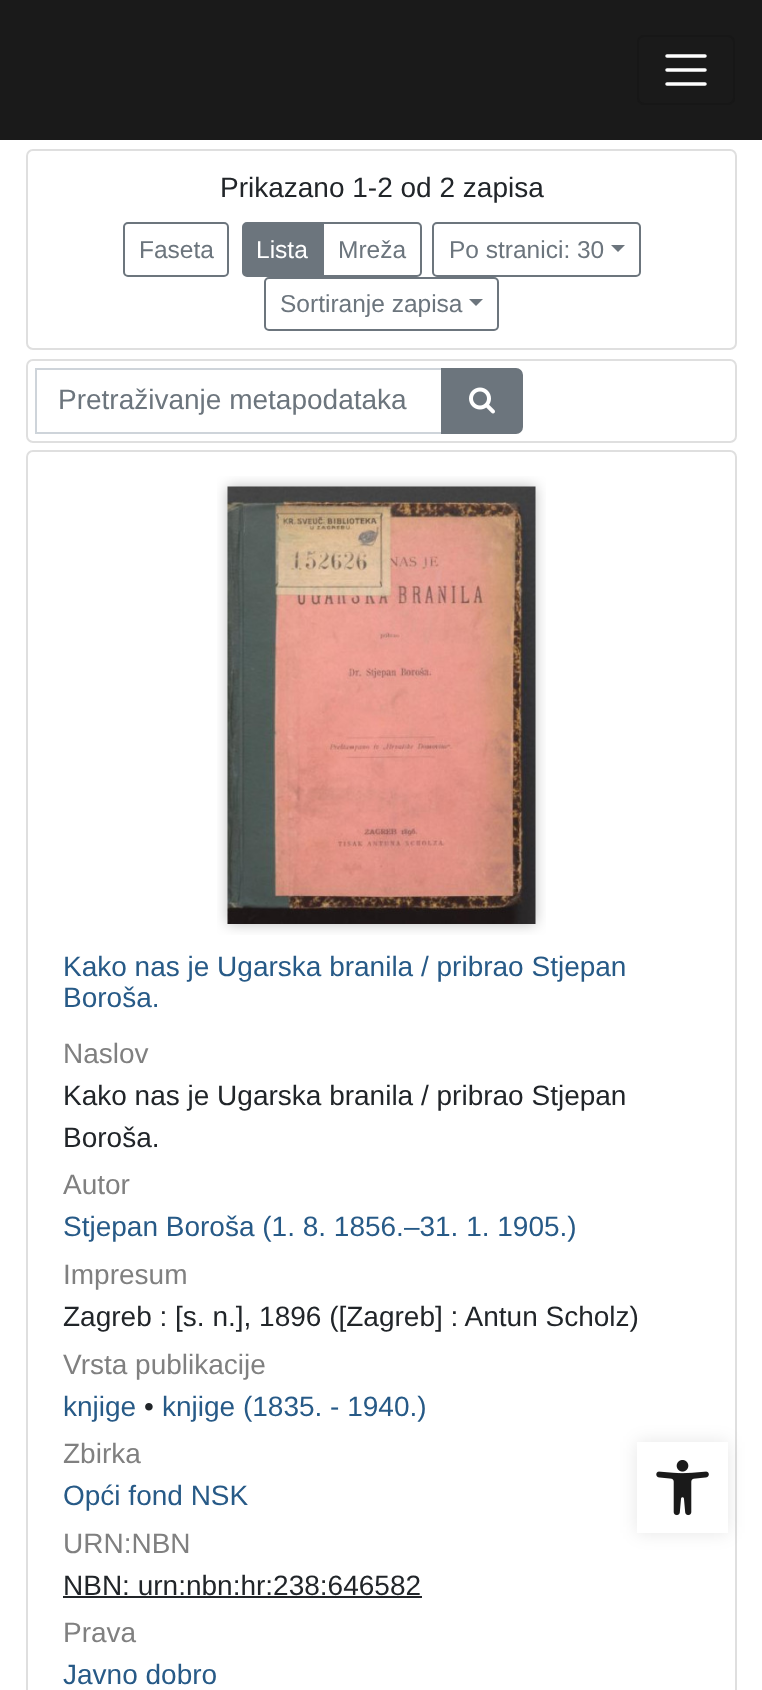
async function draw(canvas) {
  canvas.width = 762
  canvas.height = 1690
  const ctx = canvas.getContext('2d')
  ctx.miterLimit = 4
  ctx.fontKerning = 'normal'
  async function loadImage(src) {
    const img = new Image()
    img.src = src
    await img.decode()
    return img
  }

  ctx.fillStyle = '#fff'
  ctx.fillRect(0, 0, 762, 1690)
  ctx.fillStyle = '#1a1a1a'
  ctx.fillRect(0, 0, 762, 140)
  ctx.beginPath()
  ctx.roundRect(638, 36, 96, 68, 6)
  ctx.strokeStyle = '#171717'
  ctx.lineWidth = 2
  ctx.stroke()
  ctx.beginPath()
  ctx.moveTo(667, 56)
  ctx.lineTo(705, 56)
  ctx.moveTo(667, 70)
  ctx.lineTo(705, 70)
  ctx.moveTo(667, 84)
  ctx.lineTo(705, 84)
  ctx.strokeStyle = '#fff'
  ctx.lineWidth = 3.5
  ctx.lineCap = 'round'
  ctx.stroke()
  ctx.beginPath()
  ctx.roundRect(27, 150, 709, 199, 6)
  ctx.strokeStyle = '#dfdfdf'
  ctx.lineWidth = 2
  ctx.stroke()
  ctx.font = '28px Liberation Sans'
  ctx.fillStyle = '#212529'
  ctx.fillText('Prikazano 1-2 od 2 zapisa', 220, 197)
  ctx.beginPath()
  ctx.roundRect(124, 223, 104, 53, 4)
  ctx.strokeStyle = '#6c757d'
  ctx.stroke()
  ctx.font = '24.5px Liberation Sans'
  ctx.fillStyle = '#6c757d'
  ctx.fillText('Faseta', 139, 258)
  ctx.beginPath()
  ctx.roundRect(243, 223, 80, 53, [4, 0, 0, 4])
  ctx.fill()
  ctx.stroke()
  ctx.fillStyle = '#fff'
  ctx.fillText('Lista', 256, 258)
  ctx.beginPath()
  ctx.roundRect(323, 223, 98, 53, [0, 4, 4, 0])
  ctx.stroke()
  ctx.fillStyle = '#6c757d'
  ctx.fillText('Mreža', 338, 258)
  ctx.beginPath()
  ctx.roundRect(433, 223, 207, 53, 4)
  ctx.stroke()
  ctx.fillText('Po stranici: 30', 449, 258)
  ctx.beginPath()
  ctx.moveTo(611, 245)
  ctx.lineTo(625, 245)
  ctx.lineTo(618, 252)
  ctx.closePath()
  ctx.fill()
  ctx.beginPath()
  ctx.roundRect(265, 278, 233, 52, 4)
  ctx.stroke()
  ctx.fillText('Sortiranje zapisa', 280, 312)
  ctx.beginPath()
  ctx.moveTo(469, 299)
  ctx.lineTo(483, 299)
  ctx.lineTo(476, 306)
  ctx.closePath()
  ctx.fill()
  ctx.beginPath()
  ctx.roundRect(27, 360, 709, 82, 6)
  ctx.strokeStyle = '#dfdfdf'
  ctx.stroke()
  ctx.strokeStyle = '#ced4da'
  ctx.strokeRect(36, 369, 406, 64)
  ctx.font = '28px Liberation Sans'
  ctx.fillText('Pretraživanje metapodataka', 58, 409)
  ctx.beginPath()
  ctx.roundRect(442, 369, 80, 64, [0, 6, 6, 0])
  ctx.fill()
  ctx.strokeStyle = '#6c757d'
  ctx.stroke()
  ctx.drawImage(await loadImage('image0.png'), 469, 387, 26, 27)
  ctx.beginPath()
  ctx.roundRect(27, 451, 709, 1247, 6)
  ctx.strokeStyle = '#dfdfdf'
  ctx.stroke()
  ctx.drawImage(await loadImage('image1.png'), 217, 476, 329, 459)
  ctx.fillStyle = '#275a87'
  ctx.fillText('Kako nas je Ugarska branila / pribrao Stjepan', 63, 976)
  ctx.fillText('Boroša.', 63, 1007)
  ctx.fillStyle = '#808080'
  ctx.fillText('Naslov', 63, 1063)
  ctx.fillStyle = '#212529'
  ctx.fillText('Kako nas je Ugarska branila / pribrao Stjepan', 63, 1105)
  ctx.fillText('Boroša.', 63, 1147)
  ctx.fillStyle = '#808080'
  ctx.fillText('Autor', 63, 1194)
  ctx.fillStyle = '#275a87'
  ctx.fillText('Stjepan Boroša (1. 8. 1856.–31. 1. 1905.)', 63, 1236)
  ctx.fillStyle = '#808080'
  ctx.fillText('Impresum', 63, 1284)
  ctx.fillStyle = '#212529'
  ctx.fillText('Zagreb : [s. n.], 1896 ([Zagreb] : Antun Scholz)', 63, 1326)
  ctx.fillStyle = '#808080'
  ctx.fillText('Vrsta publikacije', 63, 1374)
  ctx.fillStyle = '#275a87'
  ctx.fillText('knjige', 63, 1416)
  ctx.fillStyle = '#212529'
  ctx.fillText('•', 144, 1416)
  ctx.fillStyle = '#275a87'
  ctx.fillText('knjige (1835. - 1940.)', 162, 1416)
  ctx.fillStyle = '#808080'
  ctx.fillText('Zbirka', 63, 1463)
  ctx.fillStyle = '#275a87'
  ctx.fillText('Opći fond NSK', 63, 1505)
  ctx.fillStyle = '#808080'
  ctx.fillText('URN:NBN', 63, 1553)
  ctx.fillStyle = '#212529'
  ctx.fillText('NBN: urn:nbn:hr:238:646582', 63, 1595)
  ctx.fillRect(63, 1596, 359, 2)
  ctx.fillStyle = '#808080'
  ctx.fillText('Prava', 63, 1642)
  ctx.fillStyle = '#275a87'
  ctx.fillText('Javno dobro', 63, 1684)
  ctx.save()
  ctx.beginPath()
  ctx.moveTo(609, 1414)
  ctx.lineTo(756, 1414)
  ctx.lineTo(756, 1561)
  ctx.lineTo(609, 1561)
  ctx.closePath()
  ctx.moveTo(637, 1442)
  ctx.lineTo(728, 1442)
  ctx.lineTo(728, 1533)
  ctx.lineTo(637, 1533)
  ctx.closePath()
  ctx.clip('evenodd')
  ctx.fillStyle = '#0000001a'
  ctx.filter = 'blur(9px)'
  ctx.beginPath()
  ctx.rect(637, 1442, 91, 91)
  ctx.fill()
  ctx.filter = 'none'
  ctx.restore()
  ctx.drawImage(await loadImage('image2.png'), 656, 1460, 53, 56)
}

draw(document.querySelector('canvas'))
